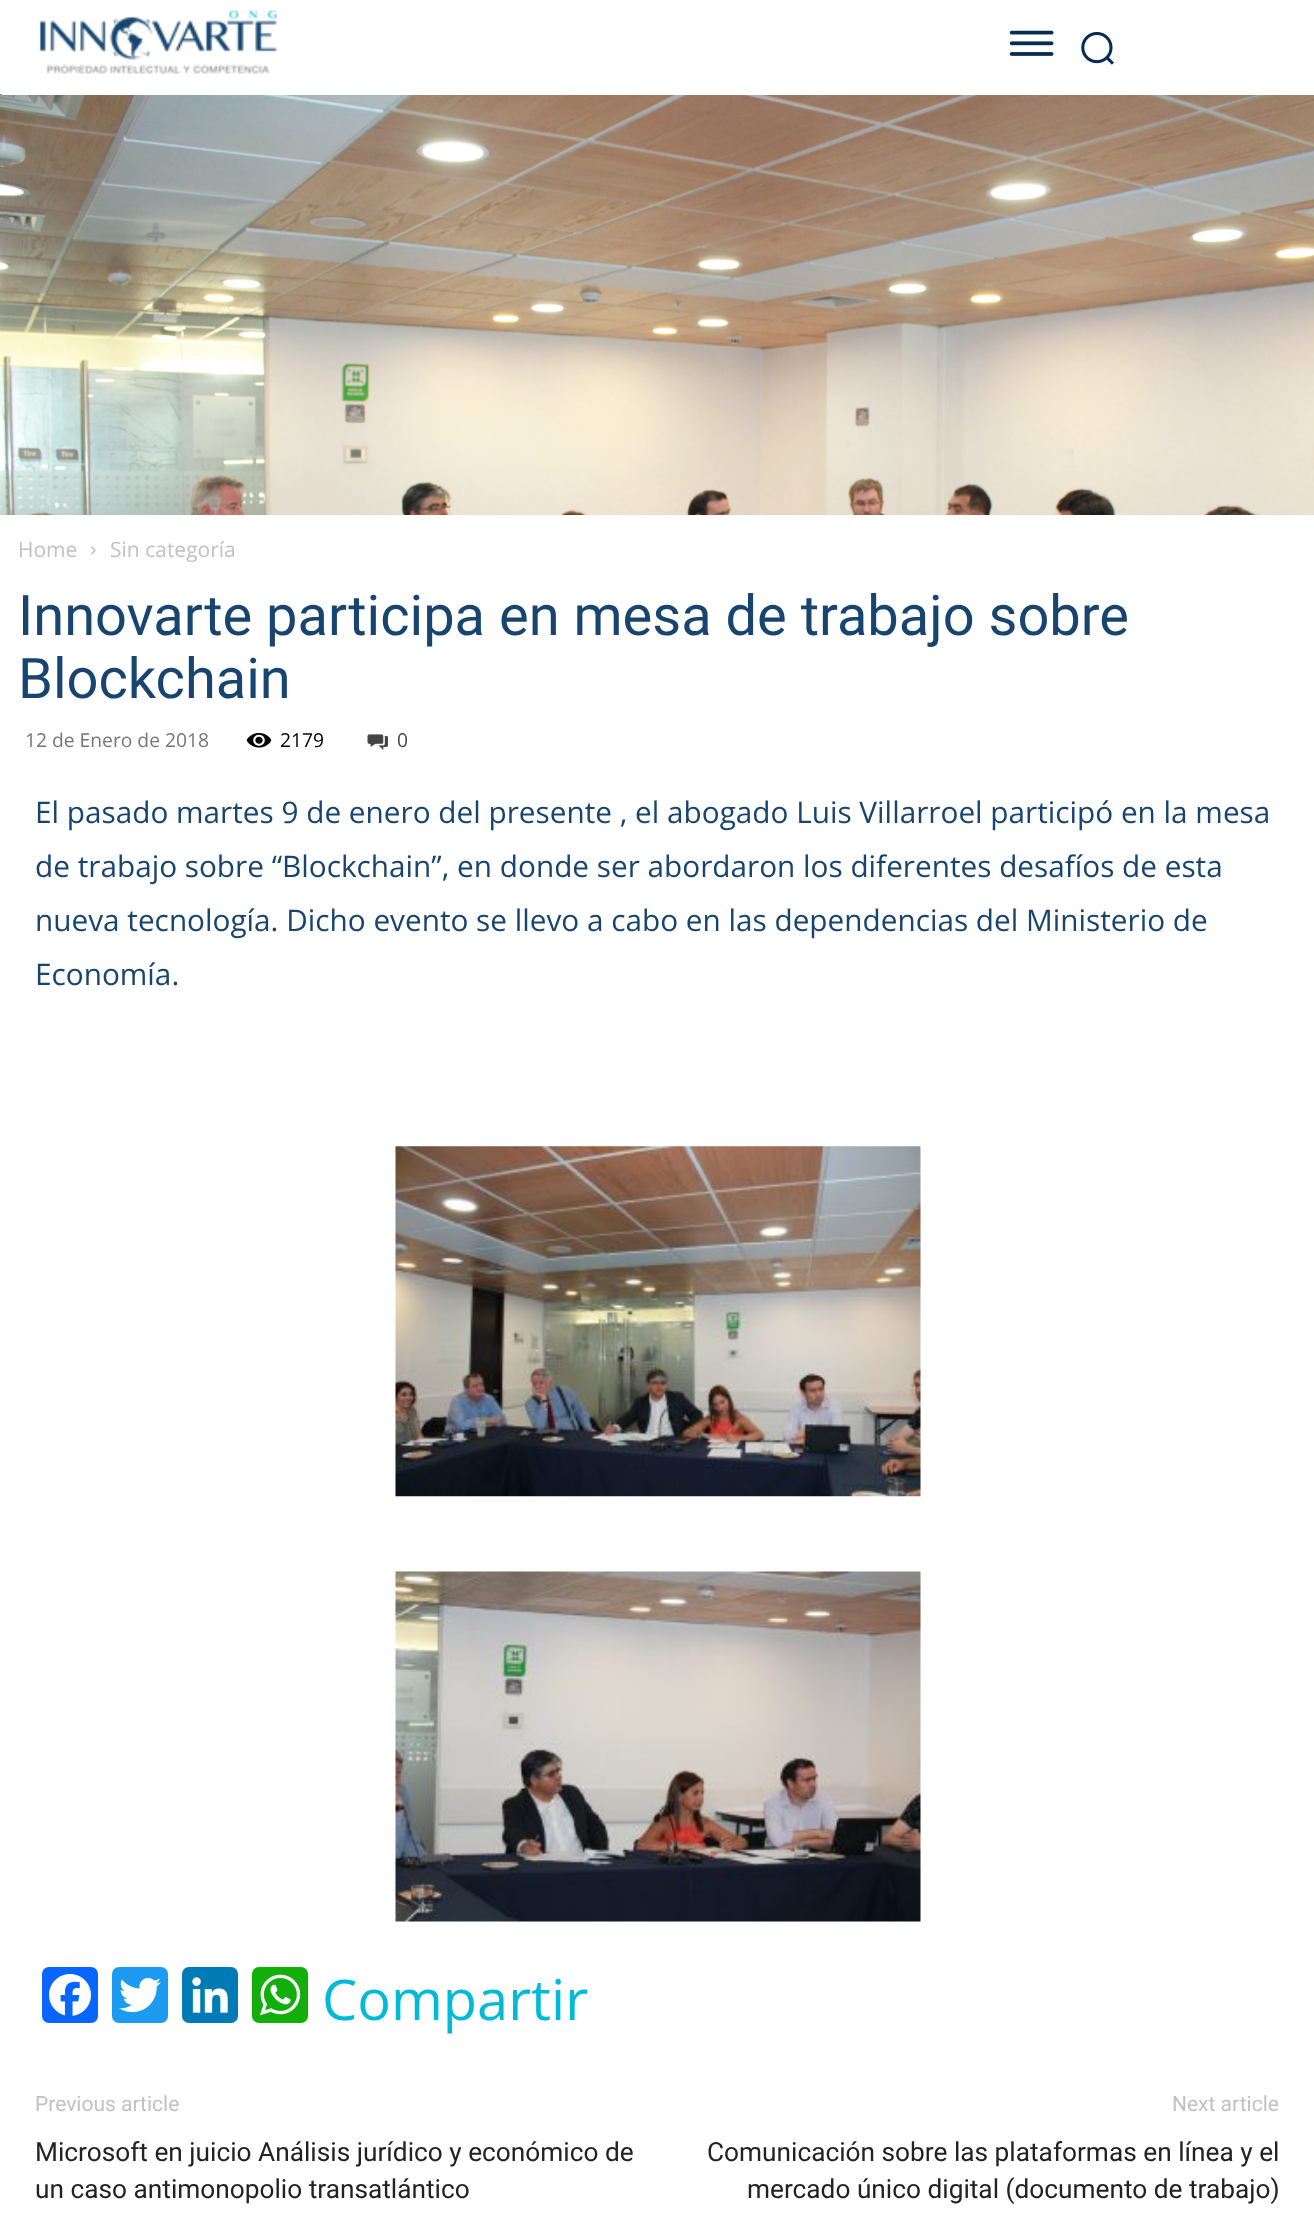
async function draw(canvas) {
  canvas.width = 1314
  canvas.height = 2213
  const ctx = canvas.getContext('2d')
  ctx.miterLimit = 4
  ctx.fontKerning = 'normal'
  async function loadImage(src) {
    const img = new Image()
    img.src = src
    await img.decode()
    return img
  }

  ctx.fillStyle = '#fff'
  ctx.fillRect(0, 0, 1314, 2213)
  ctx.drawImage(await loadImage('image0.png'), 39, 10, 238, 64)
  ctx.drawImage(await loadImage('image1.png'), 1009, 30, 45, 26)
  ctx.drawImage(await loadImage('image2.png'), 1081, 31, 33, 34)
  ctx.drawImage(await loadImage('image3.png'), 0, 94, 1314, 421)
  ctx.fillRect(2, 94, 1312, 1)
  ctx.font = '21px Open Sans'
  ctx.fillStyle = '#c1c1c1'
  ctx.fillText('Home', 18, 557)
  ctx.drawImage(await loadImage('image4.png'), 91, 546, 5, 9)
  ctx.fillText('Sin categoría', 110, 557)
  ctx.font = '56px Roboto'
  ctx.fillStyle = '#174570'
  ctx.fillText('Innovarte participa en mesa de trabajo sobre', 18, 635)
  ctx.fillText('Blockchain', 18, 698)
  ctx.font = '19.25px Open Sans'
  ctx.fillStyle = '#767676'
  ctx.fillText('12 de Enero de 2018', 25, 747)
  ctx.drawImage(await loadImage('image5.png'), 246, 732, 26, 16)
  ctx.fillStyle = '#000'
  ctx.fillText('2179', 280, 747)
  ctx.drawImage(await loadImage('image6.png'), 367, 734, 21, 16)
  ctx.fillStyle = '#444'
  ctx.fillText('0', 397, 747)
  ctx.font = '29.75px Open Sans'
  ctx.fillStyle = '#174570'
  ctx.fillText('El pasado martes 9 de enero del presente , el abogado Luis Villarroel participó en la mesa', 35, 823)
  ctx.fillText('de trabajo sobre “Blockchain”, en donde ser abordaron los diferentes desafíos de esta', 35, 877)
  ctx.fillText('nueva tecnología. Dicho evento se llevo a cabo en las dependencias del Ministerio de', 35, 931)
  ctx.fillText('Economía.', 35, 985)
  ctx.drawImage(await loadImage('image7.png'), 395, 1146, 526, 351)
  ctx.drawImage(await loadImage('image8.png'), 395, 1571, 526, 351)
  ctx.fillStyle = '#0866ff'
  ctx.beginPath()
  ctx.roundRect(42, 1967, 56, 56, 7)
  ctx.fill()
  ctx.drawImage(await loadImage('image9.png'), 49, 1974, 42, 42)
  ctx.fillStyle = '#1d9bf0'
  ctx.beginPath()
  ctx.roundRect(112, 1967, 56, 56, 7)
  ctx.fill()
  ctx.drawImage(await loadImage('image10.png'), 119, 1977, 42, 36)
  ctx.fillStyle = '#007bb5'
  ctx.beginPath()
  ctx.roundRect(182, 1967, 56, 56, 7)
  ctx.fill()
  ctx.drawImage(await loadImage('image11.png'), 192, 1977, 36, 36)
  ctx.fillStyle = '#12af0a'
  ctx.beginPath()
  ctx.roundRect(252, 1967, 56, 56, 7)
  ctx.fill()
  ctx.drawImage(await loadImage('image12.png'), 260, 1974, 41, 42)
  ctx.font = '56px Open Sans'
  ctx.fillStyle = '#00bad7'
  ctx.fillText('Compartir', 322, 2020)
  ctx.font = '21px Roboto'
  ctx.fillStyle = '#c1c1c1'
  ctx.fillText('Previous article', 35, 2111)
  ctx.font = '26.25px Roboto'
  ctx.fillStyle = '#222'
  ctx.fillText('Microsoft en juicio Análisis jurídico y económico de', 35, 2161)
  ctx.fillText('un caso antimonopolio transatlántico', 35, 2198)
  ctx.font = '21px Roboto'
  ctx.fillStyle = '#c1c1c1'
  ctx.fillText('Next article', 1172, 2111)
  ctx.font = '26.25px Roboto'
  ctx.fillStyle = '#222'
  ctx.fillText('Comunicación sobre las plataformas en línea y el', 707, 2161)
  ctx.fillText('mercado único digital (documento de trabajo)', 747, 2198)
}

draw(document.querySelector('canvas'))
